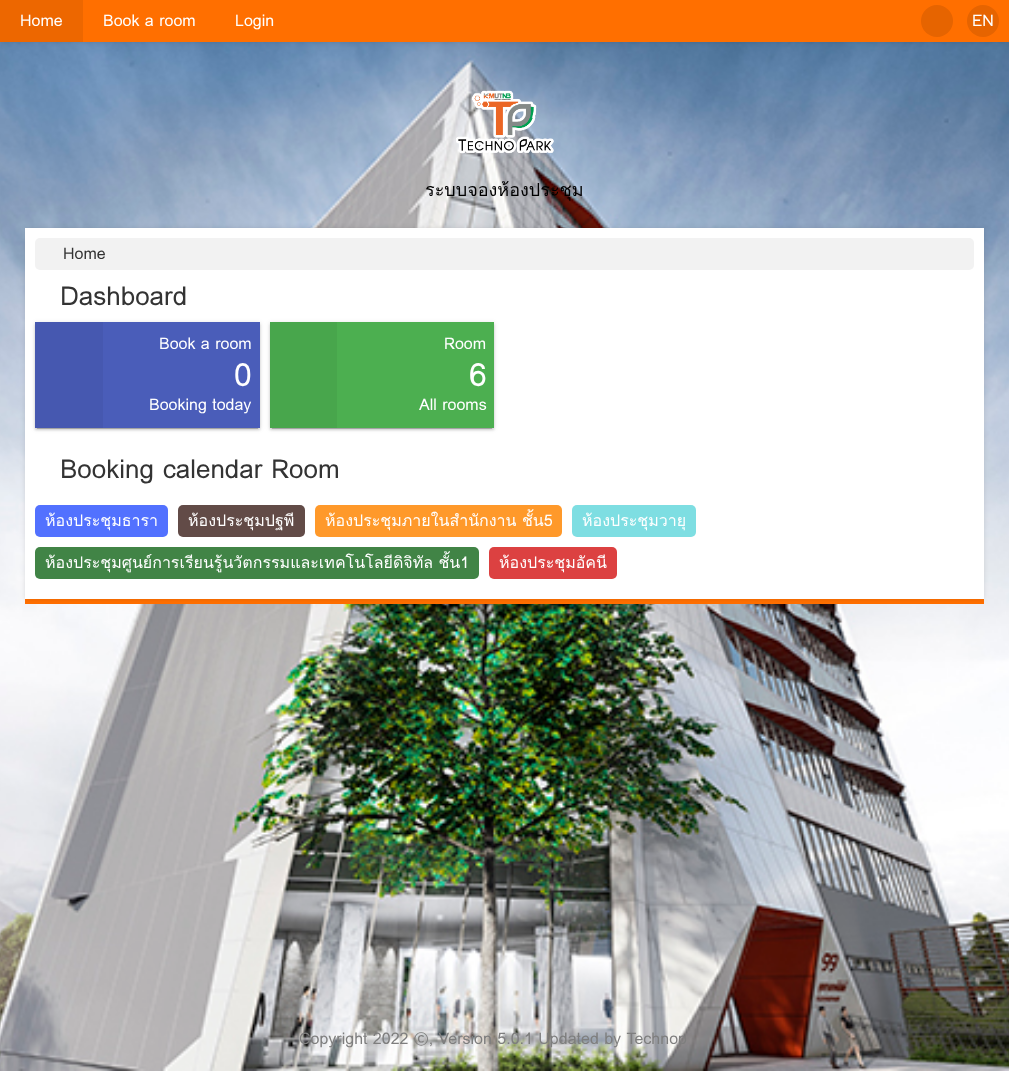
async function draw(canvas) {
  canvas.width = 1009
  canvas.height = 1071
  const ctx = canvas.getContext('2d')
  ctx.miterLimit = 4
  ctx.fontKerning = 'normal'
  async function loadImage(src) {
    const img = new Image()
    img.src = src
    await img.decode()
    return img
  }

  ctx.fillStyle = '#fff'
  ctx.fillRect(0, 0, 1009, 1071)
  ctx.drawImage(await loadImage('image0.png'), 0, 42, 1009, 1029)
  ctx.fillStyle = '#0000001a'
  ctx.filter = 'blur(2.5px)'
  ctx.beginPath()
  ctx.rect(0, 0, 1009, 42)
  ctx.fill()
  ctx.filter = 'none'
  ctx.fillStyle = '#ff6f00'
  ctx.fillRect(83, 0, 926, 42)
  ctx.fillStyle = '#ed6700'
  ctx.fillRect(0, 0, 83, 42)
  ctx.font = '16px Loma'
  ctx.fillStyle = '#fff'
  ctx.fillText('Home', 20, 26)
  ctx.fillText('Book a room', 103, 26)
  ctx.fillText('Login', 235, 26)
  ctx.fillStyle = '#e66400'
  ctx.beginPath()
  ctx.arc(937, 21, 16, 0, 2 * Math.PI)
  ctx.fill()
  ctx.beginPath()
  ctx.arc(983, 21, 16, 0, 2 * Math.PI)
  ctx.fill()
  ctx.fillStyle = '#fff'
  ctx.fillText('EN', 972, 26)
  ctx.drawImage(await loadImage('image1.png'), 456, 90, 98, 64)
  ctx.font = '18px Loma'
  ctx.fillStyle = '#000'
  ctx.fillText('ระบบจองห้องประชุม', 425, 196)
  ctx.fillStyle = '#ff6f00'
  ctx.fillRect(25, 599, 959, 5)
  ctx.fillStyle = '#0000001a'
  ctx.filter = 'blur(2.5px)'
  ctx.beginPath()
  ctx.rect(25, 228, 959, 371)
  ctx.fill()
  ctx.filter = 'none'
  ctx.fillStyle = '#fff'
  ctx.fillRect(25, 228, 959, 371)
  ctx.fillStyle = '#f2f2f2'
  ctx.beginPath()
  ctx.roundRect(35, 238, 939, 32, 5)
  ctx.fill()
  ctx.font = '16px Loma'
  ctx.fillStyle = '#333'
  ctx.fillText('Home', 63, 259)
  ctx.font = '26px Loma'
  ctx.fillText('Dashboard', 60, 305)
  ctx.fillStyle = '#00000033'
  ctx.filter = 'blur(0.5px)'
  ctx.beginPath()
  ctx.rect(37, 327, 221, 102)
  ctx.fill()
  ctx.filter = 'none'
  ctx.fillStyle = '#0000001f'
  ctx.filter = 'blur(2.5px)'
  ctx.beginPath()
  ctx.rect(35, 323, 225, 106)
  ctx.fill()
  ctx.filter = 'none'
  ctx.fillStyle = '#00000024'
  ctx.filter = 'blur(1px)'
  ctx.beginPath()
  ctx.rect(35, 324, 225, 106)
  ctx.fill()
  ctx.filter = 'none'
  ctx.fillStyle = '#4a5db9'
  ctx.fillRect(103, 322, 157, 106)
  ctx.fillStyle = '#4658b0'
  ctx.fillRect(35, 322, 68, 106)
  ctx.font = '16px Loma'
  ctx.fillStyle = '#fff'
  ctx.fillText('Book a room', 159, 349)
  ctx.font = '32px Loma'
  ctx.fillText('0', 234, 386)
  ctx.font = '16px Loma'
  ctx.fillText('Booking today', 149, 410)
  ctx.fillStyle = '#00000033'
  ctx.filter = 'blur(0.5px)'
  ctx.beginPath()
  ctx.rect(272, 327, 220, 102)
  ctx.fill()
  ctx.filter = 'none'
  ctx.fillStyle = '#0000001f'
  ctx.filter = 'blur(2.5px)'
  ctx.beginPath()
  ctx.rect(270, 323, 224, 106)
  ctx.fill()
  ctx.filter = 'none'
  ctx.fillStyle = '#00000024'
  ctx.filter = 'blur(1px)'
  ctx.beginPath()
  ctx.rect(270, 324, 224, 106)
  ctx.fill()
  ctx.filter = 'none'
  ctx.fillStyle = '#4caf50'
  ctx.fillRect(337, 322, 157, 106)
  ctx.fillStyle = '#48a64c'
  ctx.fillRect(270, 322, 67, 106)
  ctx.fillStyle = '#fff'
  ctx.fillText('Room', 444, 349)
  ctx.font = '32px Loma'
  ctx.fillText('6', 469, 386)
  ctx.font = '16px Loma'
  ctx.fillText('All rooms', 419, 410)
  ctx.font = '26px Loma'
  ctx.fillStyle = '#333'
  ctx.fillText('Booking calendar Room', 60, 478)
  ctx.fillStyle = '#5271ff'
  ctx.beginPath()
  ctx.roundRect(35, 505, 133, 32, 5)
  ctx.fill()
  ctx.font = '16px Loma'
  ctx.fillStyle = '#fff'
  ctx.fillText('ห้องประชุมธารา', 45, 526)
  ctx.fillStyle = '#624b47'
  ctx.beginPath()
  ctx.roundRect(178, 505, 127, 32, 5)
  ctx.fill()
  ctx.fillStyle = '#fff'
  ctx.fillText('ห้องประชุมปฐพี', 188, 526)
  ctx.fillStyle = '#ff992a'
  ctx.beginPath()
  ctx.roundRect(315, 505, 247, 32, 5)
  ctx.fill()
  ctx.fillStyle = '#fff'
  ctx.fillText('ห้องประชุมภายในสำนักงาน ชั้น5', 325, 526)
  ctx.fillStyle = '#7edee2'
  ctx.beginPath()
  ctx.roundRect(572, 505, 124, 32, 5)
  ctx.fill()
  ctx.fillStyle = '#fff'
  ctx.fillText('ห้องประชุมวายุ', 582, 526)
  ctx.fillStyle = '#418446'
  ctx.beginPath()
  ctx.roundRect(35, 547, 444, 32, 5)
  ctx.fill()
  ctx.fillStyle = '#fff'
  ctx.fillText('ห้องประชุมศูนย์การเรียนรู้นวัตกรรมและเทคโนโลยีดิจิทัล ชั้น1', 45, 568)
  ctx.fillStyle = '#dc4141'
  ctx.beginPath()
  ctx.roundRect(489, 547, 128, 32, 5)
  ctx.fill()
  ctx.fillStyle = '#fff'
  ctx.fillText('ห้องประชุมอัคนี', 499, 568)
  ctx.fillStyle = '#7e7e7e'
  ctx.fillText('Copyright 2022 ©, Version 5.0.1 Updated by Technop', 299, 1044)
}

draw(document.querySelector('canvas'))
